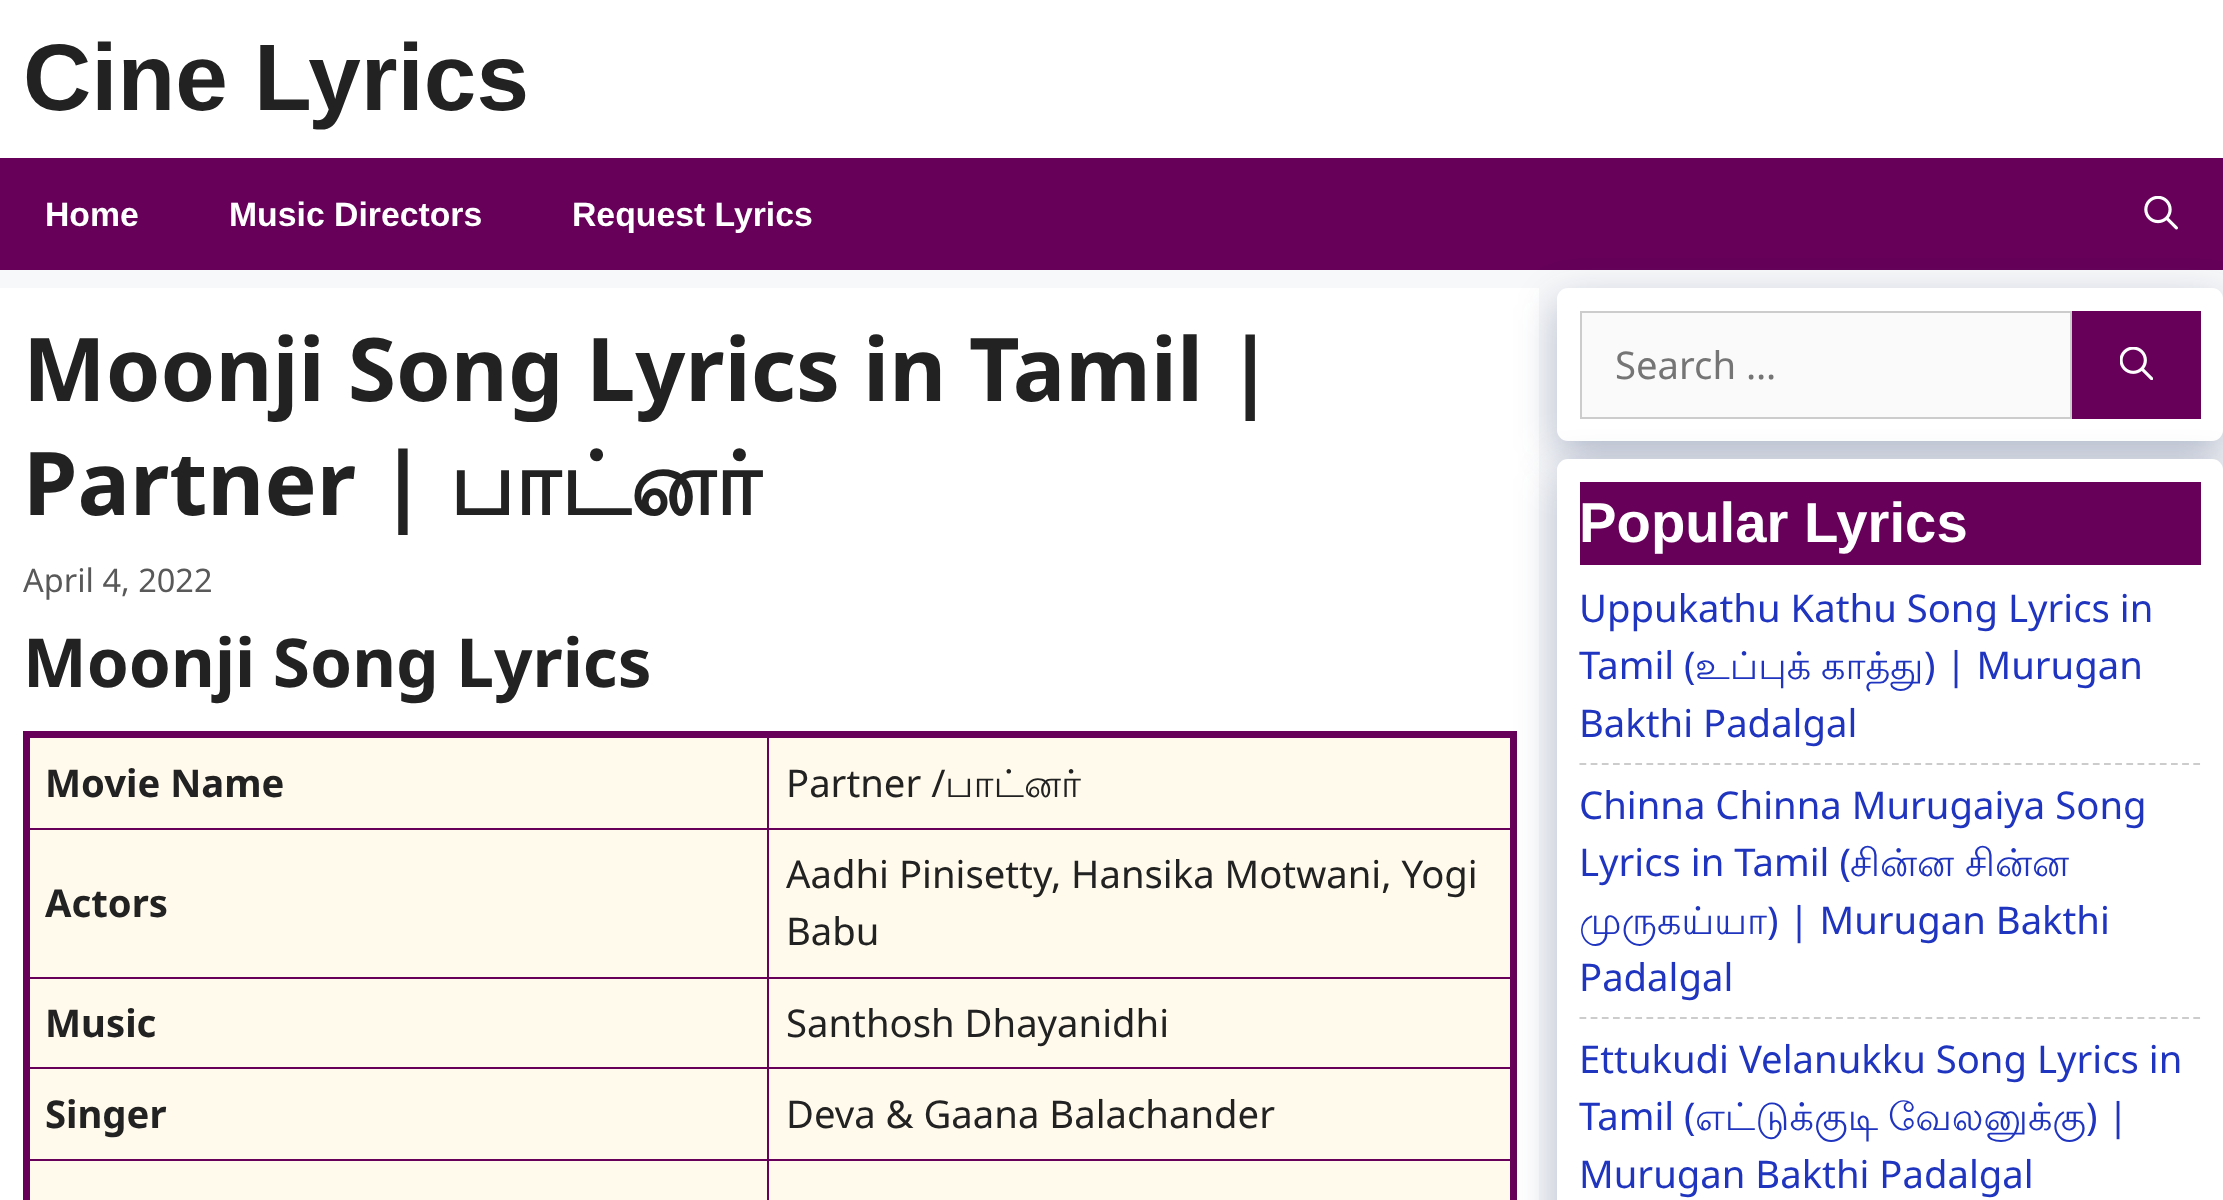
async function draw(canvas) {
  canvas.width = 2223
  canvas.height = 1200
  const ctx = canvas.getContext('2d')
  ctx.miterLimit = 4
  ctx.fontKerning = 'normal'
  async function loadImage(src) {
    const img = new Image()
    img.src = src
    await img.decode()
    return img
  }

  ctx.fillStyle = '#f7f8f9'
  ctx.fillRect(0, 0, 2223, 1200)
  ctx.fillStyle = '#fff'
  ctx.fillRect(0, 0, 2223, 158)
  ctx.font = 'bold 94.5px Liberation Sans'
  ctx.fillStyle = '#222'
  ctx.fillText('Cine Lyrics', 23, 110)
  ctx.fillStyle = '#660059'
  ctx.fillRect(0, 158, 2223, 112)
  ctx.font = 'bold 33.75px Liberation Sans'
  ctx.fillStyle = '#fff'
  ctx.fillText('Home', 45, 226)
  ctx.fillText('Music Directors', 229, 226)
  ctx.fillText('Request Lyrics', 572, 226)
  ctx.drawImage(await loadImage('image0.png'), 2144, 196, 34, 34)
  ctx.fillRect(0, 288, 1539, 912)
  ctx.font = 'bold 87.75px Noto Sans'
  ctx.fillStyle = '#222'
  ctx.fillText('Moonji Song Lyrics in Tamil |', 23, 401)
  ctx.fillText('Partner |', 23, 515)
  ctx.font = 'bold 87.75px Lohit Tamil'
  ctx.fillText('பாட்னர்', 449, 515)
  ctx.font = '32.5px Noto Sans'
  ctx.fillStyle = '#595959'
  ctx.fillText('April 4, 2022', 23, 592)
  ctx.font = 'bold 67.5px Noto Sans'
  ctx.fillStyle = '#222'
  ctx.fillText('Moonji Song Lyrics', 23, 687)
  ctx.fillStyle = '#fffaeb'
  ctx.fillRect(30, 738, 1480, 90)
  ctx.fillStyle = '#660059'
  ctx.fillRect(767, 828, 747, 2)
  ctx.fillStyle = '#fffaeb'
  ctx.fillRect(30, 830, 1480, 147)
  ctx.fillStyle = '#660059'
  ctx.fillRect(767, 977, 747, 2)
  ctx.fillStyle = '#fffaeb'
  ctx.fillRect(30, 979, 1480, 88)
  ctx.fillStyle = '#660059'
  ctx.fillRect(767, 1067, 747, 2)
  ctx.fillStyle = '#fffaeb'
  ctx.fillRect(30, 1069, 1480, 90)
  ctx.fillStyle = '#660059'
  ctx.fillRect(767, 1159, 747, 2)
  ctx.fillStyle = '#fffaeb'
  ctx.fillRect(30, 1161, 1480, 39)
  ctx.fillStyle = '#660059'
  ctx.fillRect(767, 1159, 2, 41)
  ctx.fillRect(25, 1159, 745, 2)
  ctx.fillRect(767, 1067, 2, 94)
  ctx.fillRect(25, 1067, 745, 2)
  ctx.fillRect(767, 977, 2, 92)
  ctx.fillRect(25, 977, 745, 2)
  ctx.fillRect(767, 828, 2, 151)
  ctx.fillRect(25, 828, 745, 2)
  ctx.fillRect(767, 734, 2, 96)
  ctx.fillRect(23, 731, 1494, 7)
  ctx.fillRect(1510, 731, 7, 469)
  ctx.fillRect(23, 731, 7, 469)
  ctx.font = 'bold 38.25px Noto Sans'
  ctx.fillStyle = '#222'
  ctx.fillText('Movie Name', 45, 797)
  ctx.font = '38.25px Noto Sans'
  ctx.fillText('Partner /', 786, 797)
  ctx.font = '38.25px Lohit Tamil'
  ctx.fillText('பாட்னர்', 945, 797)
  ctx.font = 'bold 38.25px Noto Sans'
  ctx.fillText('Actors', 45, 917)
  ctx.font = '38.25px Noto Sans'
  ctx.fillText('Aadhi Pinisetty, Hansika Motwani, Yogi', 786, 888)
  ctx.fillText('Babu', 786, 945)
  ctx.font = 'bold 38.25px Noto Sans'
  ctx.fillText('Music', 45, 1037)
  ctx.font = '38.25px Noto Sans'
  ctx.fillText('Santhosh Dhayanidhi', 786, 1037)
  ctx.font = 'bold 38.25px Noto Sans'
  ctx.fillText('Singer', 45, 1128)
  ctx.font = '38.25px Noto Sans'
  ctx.fillText('Deva & Gaana Balachander', 786, 1128)
  ctx.fillStyle = '#172b634d'
  ctx.filter = 'blur(20px)'
  ctx.beginPath()
  ctx.roundRect(1557, 302, 666, 153, 11)
  ctx.fill()
  ctx.filter = 'none'
  ctx.fillStyle = '#fff'
  ctx.beginPath()
  ctx.roundRect(1557, 288, 666, 153, 11)
  ctx.fill()
  ctx.fillStyle = '#172b634d'
  ctx.filter = 'blur(20px)'
  ctx.beginPath()
  ctx.roundRect(1557, 473, 666, 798, 11)
  ctx.fill()
  ctx.filter = 'none'
  ctx.fillStyle = '#fafafa'
  ctx.beginPath()
  ctx.rect(1581, 312, 490, 106)
  ctx.fill()
  ctx.strokeStyle = '#ccc'
  ctx.lineWidth = 2
  ctx.stroke()
  ctx.fillStyle = '#757575'
  ctx.fillText('Search …', 1615, 379)
  ctx.fillStyle = '#660059'
  ctx.fillRect(2072, 311, 129, 108)
  ctx.drawImage(await loadImage('image1.png'), 2120, 347, 33, 33)
  ctx.fillStyle = '#fff'
  ctx.beginPath()
  ctx.roundRect(1557, 459, 666, 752, 11)
  ctx.fill()
  ctx.fillStyle = '#660059'
  ctx.fillRect(1580, 482, 621, 83)
  ctx.font = 'bold 56.25px Liberation Sans'
  ctx.fillStyle = '#fff'
  ctx.fillText('Popular Lyrics', 1579, 542)
  ctx.beginPath()
  ctx.moveTo(1579.5, 764)
  ctx.lineTo(2200.5, 764)
  ctx.lineWidth = 2.2
  ctx.setLineDash([6.75, 4.41])
  ctx.stroke()
  ctx.font = '38.25px Noto Sans'
  ctx.fillStyle = '#1f34bf'
  ctx.fillText('Uppukathu Kathu Song Lyrics in', 1579, 622)
  ctx.fillText('Tamil (', 1579, 679)
  ctx.font = '38.25px Lohit Tamil'
  ctx.fillText('உப்புக்', 1695, 679)
  ctx.fillText('காத்து', 1821, 679)
  ctx.font = '38.25px Noto Sans'
  ctx.fillText(') | Murugan', 1924, 679)
  ctx.fillText('Bakthi Padalgal', 1579, 737)
  ctx.beginPath()
  ctx.moveTo(1579.5, 1018)
  ctx.lineTo(2200.5, 1018)
  ctx.stroke()
  ctx.fillText('Chinna Chinna Murugaiya Song', 1579, 819)
  ctx.fillText('Lyrics in Tamil (', 1579, 876)
  ctx.font = '38.25px Lohit Tamil'
  ctx.fillText('சின்ன', 1850, 876)
  ctx.fillText('சின்ன', 1965, 876)
  ctx.fillText('முருகய்யா', 1579, 934)
  ctx.font = '38.25px Noto Sans'
  ctx.fillText(') | Murugan Bakthi', 1767, 934)
  ctx.fillText('Padalgal', 1579, 991)
  ctx.fillText('Ettukudi Velanukku Song Lyrics in', 1579, 1073)
  ctx.fillText('Tamil (', 1579, 1130)
  ctx.font = '38.25px Lohit Tamil'
  ctx.fillText('எட்டுக்குடி', 1695, 1130)
  ctx.fillText('வேலனுக்கு', 1888, 1130)
  ctx.font = '38.25px Noto Sans'
  ctx.fillText(') |', 2086, 1130)
  ctx.fillText('Murugan Bakthi Padalgal', 1579, 1188)
}

draw(document.querySelector('canvas'))
